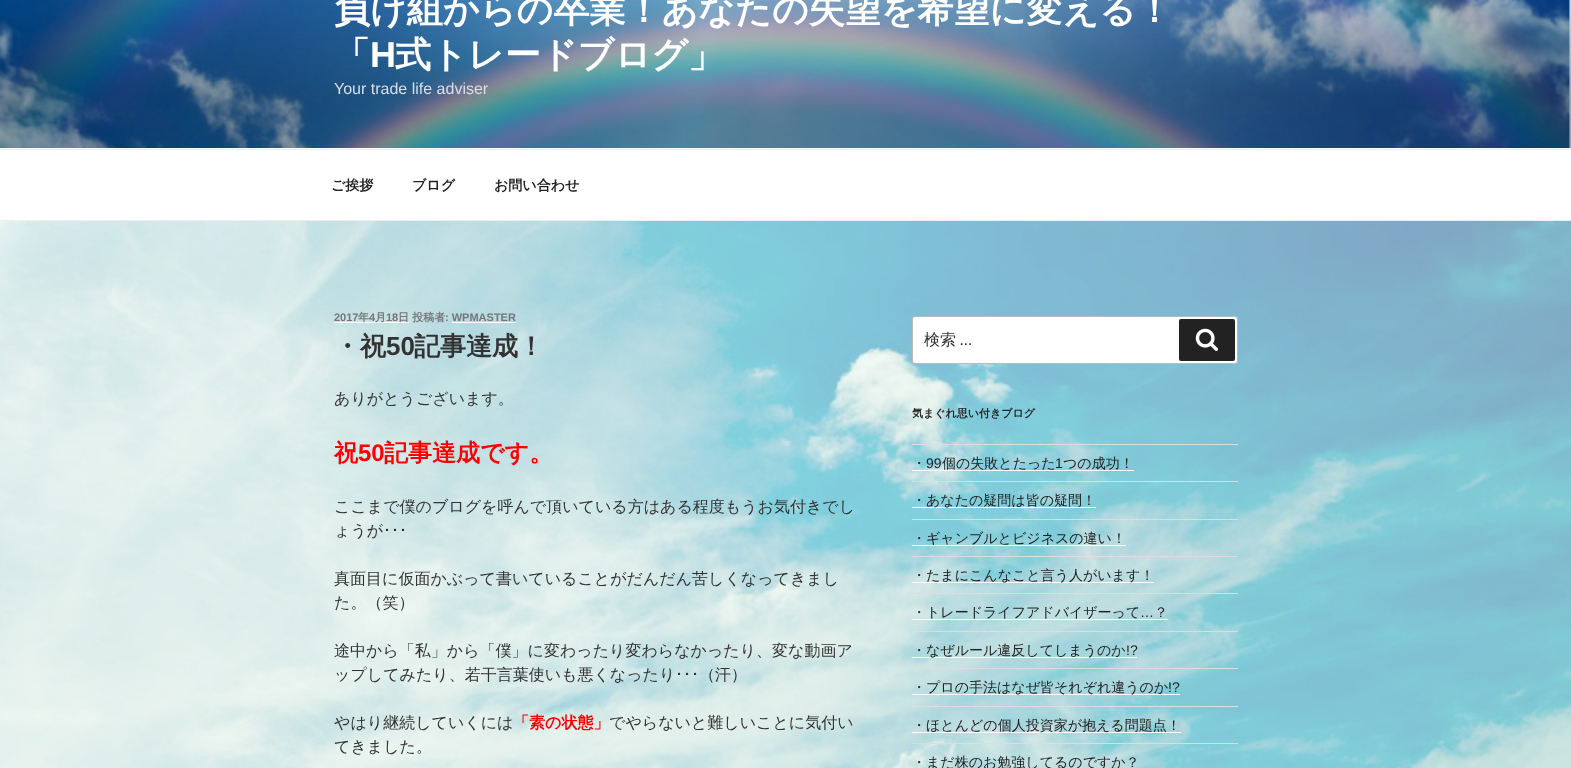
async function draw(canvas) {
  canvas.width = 1571
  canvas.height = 768
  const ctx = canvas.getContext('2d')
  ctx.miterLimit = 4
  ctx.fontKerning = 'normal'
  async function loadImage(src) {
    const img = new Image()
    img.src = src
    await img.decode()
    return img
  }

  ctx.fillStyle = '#fff'
  ctx.fillRect(0, 0, 1571, 768)
  ctx.drawImage(await loadImage('image0.png'), 0, 0, 1571, 148)
  ctx.font = 'bold 36px WenQuanYi Zen Hei'
  ctx.fillText('負け組からの卒業！あなたの失望を希望に変える！', 334, 22)
  ctx.fillText('「', 334, 67)
  ctx.font = 'bold 36px Liberation Sans'
  ctx.fillText('H', 370, 67)
  ctx.font = 'bold 36px WenQuanYi Zen Hei'
  ctx.fillText('式トレードブログ」', 395, 67)
  ctx.font = '16px Liberation Sans'
  ctx.fillStyle = '#d8dfe7'
  ctx.fillText('Your trade life adviser', 334, 94)
  ctx.fillStyle = '#eee'
  ctx.fillRect(0, 149, 1571, 1)
  ctx.fillRect(0, 220, 1571, 1)
  ctx.font = 'bold 14px WenQuanYi Zen Hei'
  ctx.fillStyle = '#222'
  ctx.fillText('ご挨拶', 331, 190)
  ctx.fillText('ブログ', 412, 190)
  ctx.fillText('お問い合わせ', 494, 190)
  ctx.drawImage(await loadImage('image1.png'), 0, 221, 1571, 547)
  ctx.font = 'bold 11px Liberation Sans'
  ctx.fillStyle = '#767676'
  ctx.fillText('2017', 334, 321)
  ctx.fillStyle = '#fff'
  ctx.fillRect(334, 322, 75, 1)
  ctx.font = 'bold 11px WenQuanYi Zen Hei'
  ctx.fillStyle = '#767676'
  ctx.fillText('年', 358, 321)
  ctx.font = 'bold 11px Liberation Sans'
  ctx.fillText('4', 369, 321)
  ctx.font = 'bold 11px WenQuanYi Zen Hei'
  ctx.fillText('月', 375, 321)
  ctx.font = 'bold 11px Liberation Sans'
  ctx.fillText('18', 386, 321)
  ctx.font = 'bold 11px WenQuanYi Zen Hei'
  ctx.fillText('日 投稿者', 398, 321)
  ctx.font = 'bold 11px Liberation Sans'
  ctx.fillText(': WPMASTER', 445, 321)
  ctx.fillStyle = '#fff'
  ctx.fillRect(452, 322, 64, 1)
  ctx.font = 'bold 26px WenQuanYi Zen Hei'
  ctx.fillStyle = '#333'
  ctx.fillText('・祝', 334, 355)
  ctx.font = 'bold 26px Liberation Sans'
  ctx.fillText('50', 386, 355)
  ctx.font = 'bold 26px WenQuanYi Zen Hei'
  ctx.fillText('記事達成！', 414, 355)
  ctx.font = '500 16px WenQuanYi Zen Hei'
  ctx.fillText('ありがとうございます。', 334, 404)
  ctx.font = 'bold 24px WenQuanYi Zen Hei'
  ctx.fillStyle = '#f00'
  ctx.fillText('祝', 334, 461)
  ctx.font = 'bold 24px Liberation Sans'
  ctx.fillText('50', 358, 461)
  ctx.font = 'bold 24px WenQuanYi Zen Hei'
  ctx.fillText('記事達成です。', 384, 461)
  ctx.font = '500 16px WenQuanYi Zen Hei'
  ctx.fillStyle = '#333'
  ctx.fillText('ここまで僕のブログを呼んで頂いている方はある程度もうお気付きでし', 334, 512)
  ctx.fillText('ょうが', 334, 536)
  ctx.font = '16px IPAPGothic'
  ctx.fillText('･･･', 383, 536)
  ctx.font = '500 16px WenQuanYi Zen Hei'
  ctx.fillText('真面目に仮面かぶって書いていることがだんだん苦しくなってきまし', 334, 584)
  ctx.fillText('た。（笑）', 334, 608)
  ctx.fillText('途中から「私」から「僕」に変わったり変わらなかったり、変な動画ア', 334, 656)
  ctx.fillText('ップしてみたり、若干言葉使いも悪くなったり', 334, 680)
  ctx.font = '16px IPAPGothic'
  ctx.fillText('･･･', 675, 680)
  ctx.font = '500 16px WenQuanYi Zen Hei'
  ctx.fillText('（汗）', 699, 680)
  ctx.fillText('やはり継続していくには', 334, 728)
  ctx.font = 'bold 16px WenQuanYi Zen Hei'
  ctx.fillStyle = '#f00'
  ctx.fillText('「素の状態」', 513, 728)
  ctx.font = '500 16px WenQuanYi Zen Hei'
  ctx.fillStyle = '#333'
  ctx.fillText('でやらないと難しいことに気付い', 609, 728)
  ctx.fillText('てきました。', 334, 752)
  ctx.fillStyle = '#fff'
  ctx.beginPath()
  ctx.roundRect(912.5, 316.5, 325, 47, 2.5)
  ctx.fill()
  ctx.strokeStyle = '#bbb'
  ctx.stroke()
  ctx.fillStyle = '#333'
  ctx.fillText('検索', 924, 345)
  ctx.font = '16px Libre Franklin'
  ctx.fillText('…', 960, 345)
  ctx.fillStyle = '#222'
  ctx.beginPath()
  ctx.roundRect(1179, 319, 56, 42, 2)
  ctx.fill()
  ctx.drawImage(await loadImage('image2.png'), 1195, 328, 23, 23)
  ctx.font = 'bold 11px WenQuanYi Zen Hei'
  ctx.fillText('気まぐれ思い付きブログ', 912, 417)
  ctx.fillStyle = '#ddd'
  ctx.fillRect(912, 444, 326, 1)
  ctx.fillRect(912, 481, 326, 1)
  ctx.font = '500 14px WenQuanYi Zen Hei'
  ctx.fillStyle = '#222'
  ctx.fillText('・', 912, 468)
  ctx.font = '14px Liberation Sans'
  ctx.fillText('99', 926, 468)
  ctx.fillStyle = '#fff'
  ctx.fillRect(912, 470, 222, 1)
  ctx.font = '500 14px WenQuanYi Zen Hei'
  ctx.fillStyle = '#222'
  ctx.fillText('個の失敗とたった', 942, 468)
  ctx.font = '14px Liberation Sans'
  ctx.fillText('1', 1055, 468)
  ctx.font = '500 14px WenQuanYi Zen Hei'
  ctx.fillText('つの成功！', 1063, 468)
  ctx.fillStyle = '#ddd'
  ctx.fillRect(912, 519, 326, 1)
  ctx.fillStyle = '#fff'
  ctx.fillRect(912, 507, 184, 1)
  ctx.fillStyle = '#222'
  ctx.fillText('・あなたの疑問は皆の疑問！', 912, 505)
  ctx.fillStyle = '#ddd'
  ctx.fillRect(912, 556, 326, 1)
  ctx.fillStyle = '#222'
  ctx.fillText('・ギャンブルとビジネスの違い！', 912, 543)
  ctx.fillStyle = '#fff'
  ctx.fillRect(912, 545, 214, 1)
  ctx.fillStyle = '#ddd'
  ctx.fillRect(912, 593, 326, 1)
  ctx.fillStyle = '#fff'
  ctx.fillRect(912, 582, 242, 1)
  ctx.fillStyle = '#222'
  ctx.fillText('・たまにこんなこと言う人がいます！', 912, 580)
  ctx.fillStyle = '#ddd'
  ctx.fillRect(912, 631, 326, 1)
  ctx.fillStyle = '#fff'
  ctx.fillRect(912, 619, 256, 1)
  ctx.fillStyle = '#222'
  ctx.fillText('・トレードライフアドバイザーって', 912, 617)
  ctx.font = '14px Liberation Sans'
  ctx.fillText('…', 1140, 617)
  ctx.font = '500 14px WenQuanYi Zen Hei'
  ctx.fillText('？', 1154, 617)
  ctx.fillStyle = '#ddd'
  ctx.fillRect(912, 668, 326, 1)
  ctx.fillStyle = '#fff'
  ctx.fillRect(912, 657, 225, 1)
  ctx.fillStyle = '#222'
  ctx.fillText('・なぜルール違反してしまうのか', 912, 655)
  ctx.font = '14px Liberation Sans'
  ctx.fillText('!?', 1126, 655)
  ctx.fillStyle = '#ddd'
  ctx.fillRect(912, 706, 326, 1)
  ctx.fillStyle = '#fff'
  ctx.fillRect(912, 694, 268, 1)
  ctx.font = '500 14px WenQuanYi Zen Hei'
  ctx.fillStyle = '#222'
  ctx.fillText('・プロの手法はなぜ皆それぞれ違うのか', 912, 692)
  ctx.font = '14px Liberation Sans'
  ctx.fillText('!?', 1168, 692)
  ctx.fillStyle = '#ddd'
  ctx.fillRect(912, 743, 326, 1)
  ctx.fillStyle = '#fff'
  ctx.fillRect(912, 732, 269, 1)
  ctx.font = '500 14px WenQuanYi Zen Hei'
  ctx.fillStyle = '#222'
  ctx.fillText('・ほとんどの個人投資家が抱える問題点！', 912, 730)
  ctx.fillText('・まだ株のお勉強してるのですか？', 912, 767)
}

draw(document.querySelector('canvas'))
